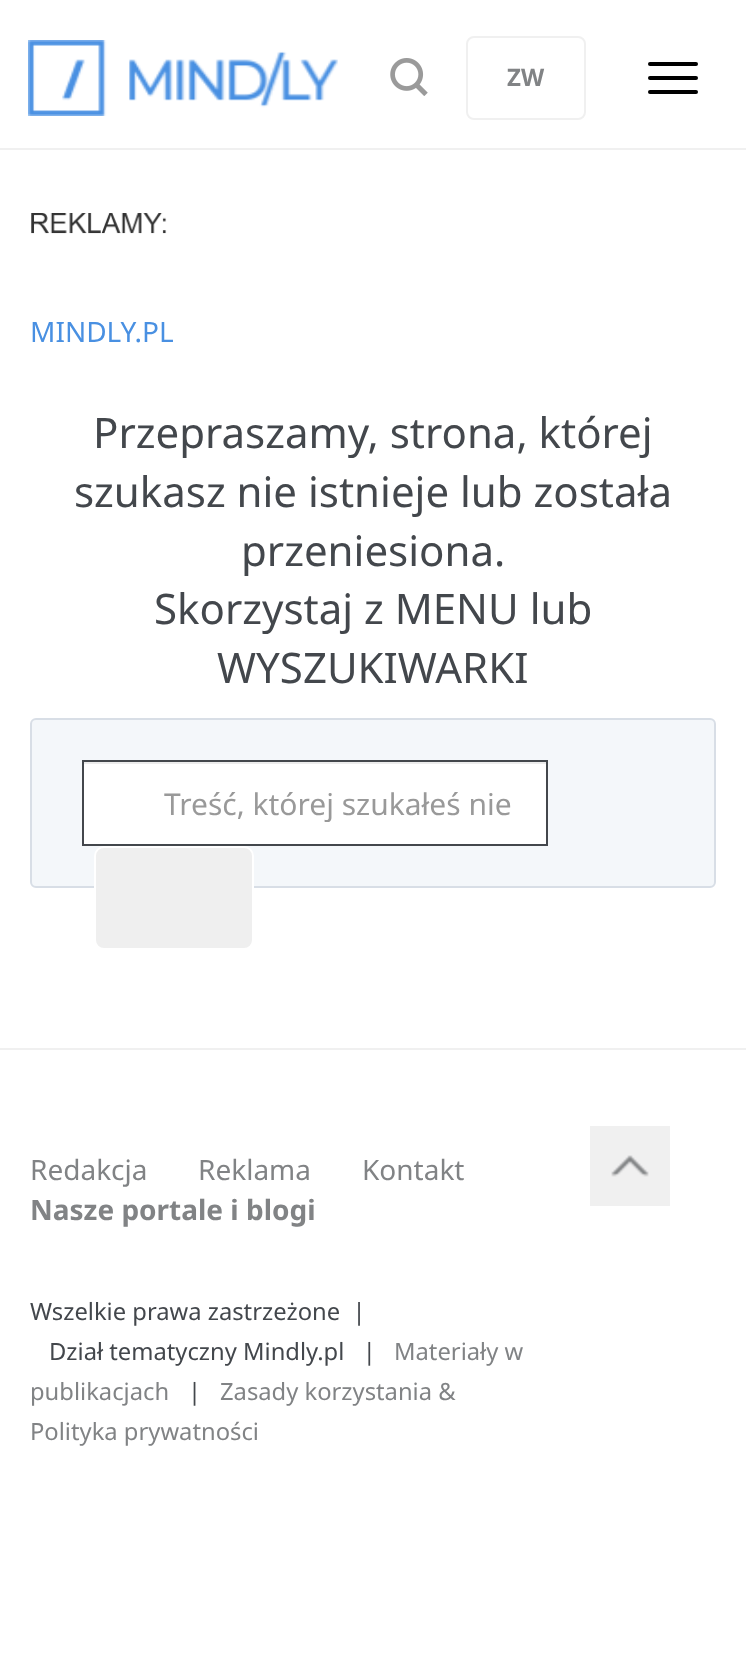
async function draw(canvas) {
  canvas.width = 746
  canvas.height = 1669
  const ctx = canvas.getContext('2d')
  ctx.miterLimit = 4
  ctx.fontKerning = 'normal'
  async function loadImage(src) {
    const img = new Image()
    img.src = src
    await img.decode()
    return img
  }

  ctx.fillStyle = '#fff'
  ctx.fillRect(0, 0, 746, 1669)
  ctx.fillStyle = '#f0f0f0'
  ctx.fillRect(0, 148, 746, 2)
  ctx.drawImage(await loadImage('image0.png'), 28, 40, 310, 76)
  ctx.drawImage(await loadImage('image1.png'), 390, 58, 38, 38)
  ctx.beginPath()
  ctx.roundRect(467, 37, 118, 82, 7)
  ctx.strokeStyle = '#f0f0f0'
  ctx.lineWidth = 2
  ctx.stroke()
  ctx.font = 'bold 24px Noto Sans'
  ctx.fillStyle = '#818385'
  ctx.fillText('ZW', 507, 86)
  ctx.fillStyle = '#000'
  ctx.beginPath()
  ctx.roundRect(648, 62, 50, 4, 2)
  ctx.fill()
  ctx.beginPath()
  ctx.roundRect(648, 76, 50, 4, 2)
  ctx.fill()
  ctx.beginPath()
  ctx.roundRect(648, 90, 50, 4, 2)
  ctx.fill()
  ctx.drawImage(await loadImage('image2.png'), 31, 213, 136, 21)
  ctx.font = '28px Noto Sans'
  ctx.fillStyle = '#4990e2'
  ctx.fillText('MINDLY.PL', 30, 342)
  ctx.font = '42px Noto Sans'
  ctx.fillStyle = '#43474c'
  ctx.fillText('Przepraszamy, strona, której', 93, 448)
  ctx.fillText('szukasz nie istnieje lub została', 74, 507)
  ctx.fillText('przeniesiona.', 241, 566)
  ctx.fillText('Skorzystaj z MENU lub', 154, 624)
  ctx.fillText('WYSZUKIWARKI', 217, 683)
  ctx.fillStyle = '#f4f7fa'
  ctx.beginPath()
  ctx.roundRect(31, 719, 684, 168, 5)
  ctx.fill()
  ctx.strokeStyle = '#d8dee6'
  ctx.stroke()
  ctx.fillStyle = '#fff'
  ctx.fillRect(84, 764, 462, 80)
  ctx.fillStyle = '#ececec'
  ctx.fillRect(84, 762, 462, 2)
  ctx.strokeStyle = '#43474c'
  ctx.strokeRect(83, 761, 464, 84)
  ctx.save()
  ctx.beginPath()
  ctx.rect(164, 782, 350, 40)
  ctx.clip()
  ctx.font = '30px Noto Sans'
  ctx.fillStyle = '#999'
  ctx.fillText('Treść, której szukałeś nie', 164, 815)
  ctx.restore()
  ctx.fillStyle = '#efefef'
  ctx.beginPath()
  ctx.roundRect(95, 847, 158, 102, 9)
  ctx.fill()
  ctx.strokeStyle = '#fff'
  ctx.stroke()
  ctx.fillStyle = '#f0f0f0'
  ctx.fillRect(0, 1048, 746, 2)
  ctx.font = '28px Noto Sans'
  ctx.fillStyle = '#818385'
  ctx.fillText('Redakcja', 30, 1180)
  ctx.fillText('Reklama', 198, 1180)
  ctx.fillText('Kontakt', 362, 1180)
  ctx.font = 'bold 28px Noto Sans'
  ctx.fillText('Nasze portale i blogi', 30, 1220)
  ctx.font = '23.75px Noto Sans'
  ctx.fillStyle = '#43474c'
  ctx.fillText('Wszelkie prawa zastrzeżone  |', 30, 1320)
  ctx.fillText('Dział tematyczny Mindly.pl   |', 49, 1360)
  ctx.fillStyle = '#818385'
  ctx.fillText('Materiały w', 394, 1360)
  ctx.fillText('publikacjach', 30, 1400)
  ctx.fillStyle = '#43474c'
  ctx.fillText('|', 188, 1400)
  ctx.fillStyle = '#818385'
  ctx.fillText('Zasady korzystania &', 220, 1400)
  ctx.fillText('Polityka prywatności', 30, 1440)
  ctx.fillStyle = '#f0f0f0'
  ctx.fillRect(590, 1126, 80, 80)
  ctx.drawImage(await loadImage('image3.png'), 611, 1155, 38, 22)
}

draw(document.querySelector('canvas'))
